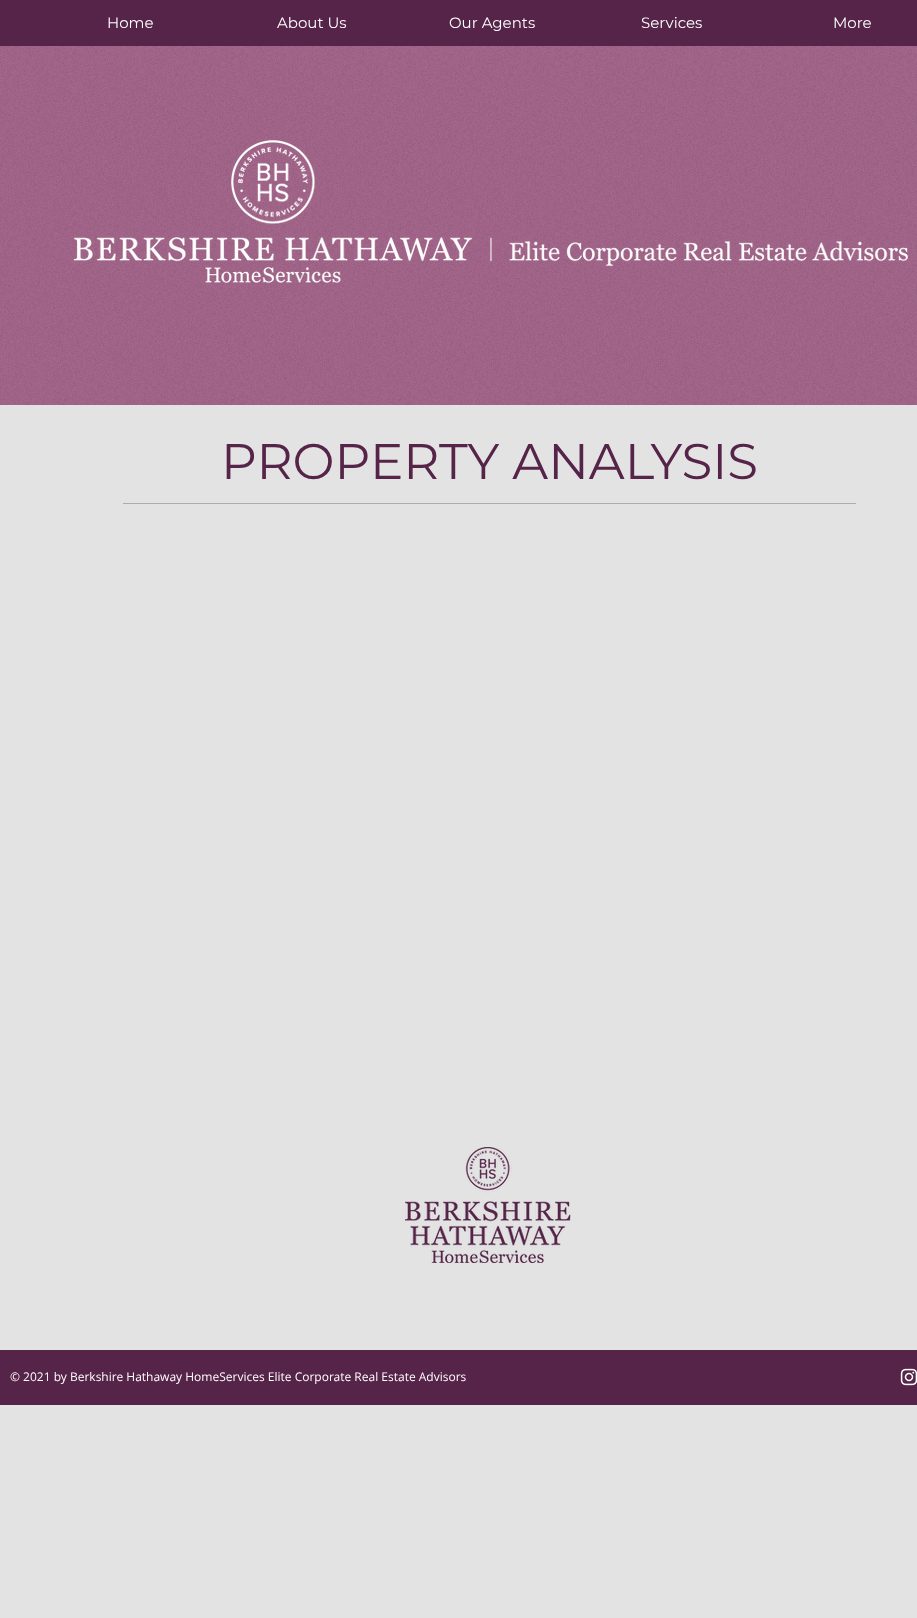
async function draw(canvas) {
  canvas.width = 917
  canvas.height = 1618
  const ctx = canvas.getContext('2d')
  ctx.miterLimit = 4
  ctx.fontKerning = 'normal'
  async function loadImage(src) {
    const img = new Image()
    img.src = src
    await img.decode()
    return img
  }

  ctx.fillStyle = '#e3e3e3'
  ctx.fillRect(0, 0, 917, 1618)
  ctx.fillStyle = '#552448'
  ctx.fillRect(0, 0, 917, 46)
  ctx.font = '15px Montserrat'
  ctx.fillStyle = '#fff'
  ctx.fillText('Home', 107, 28)
  ctx.fillText('About Us', 277, 28)
  ctx.fillText('Our Agents', 449, 28)
  ctx.fillText('Services', 641, 28)
  ctx.fillText('More', 833, 28)
  ctx.fillStyle = '#a3658a'
  ctx.fillRect(0, 46, 917, 359)
  ctx.drawImage(await loadImage('image0.png'), 0, 46, 917, 359)
  ctx.drawImage(await loadImage('image1.png'), 74, 140, 834, 143)
  ctx.font = '50px Montserrat'
  ctx.fillStyle = '#552448'
  ctx.fillText('PROPERTY ANALYSIS', 221, 479)
  ctx.fillStyle = '#acacac'
  ctx.fillRect(123, 503, 733, 1)
  ctx.drawImage(await loadImage('image2.png'), 405, 1147, 166, 116)
  ctx.fillStyle = '#552448'
  ctx.fillRect(0, 1350, 917, 55)
  ctx.font = '12px Open Sans'
  ctx.fillStyle = '#fff'
  ctx.fillText('© 2021 by Berkshire Hathaway HomeServices Elite Corporate Real Estate Advisors', 10, 1381)
  ctx.drawImage(await loadImage('image3.png'), 900, 1368, 17, 18)
}

draw(document.querySelector('canvas'))
